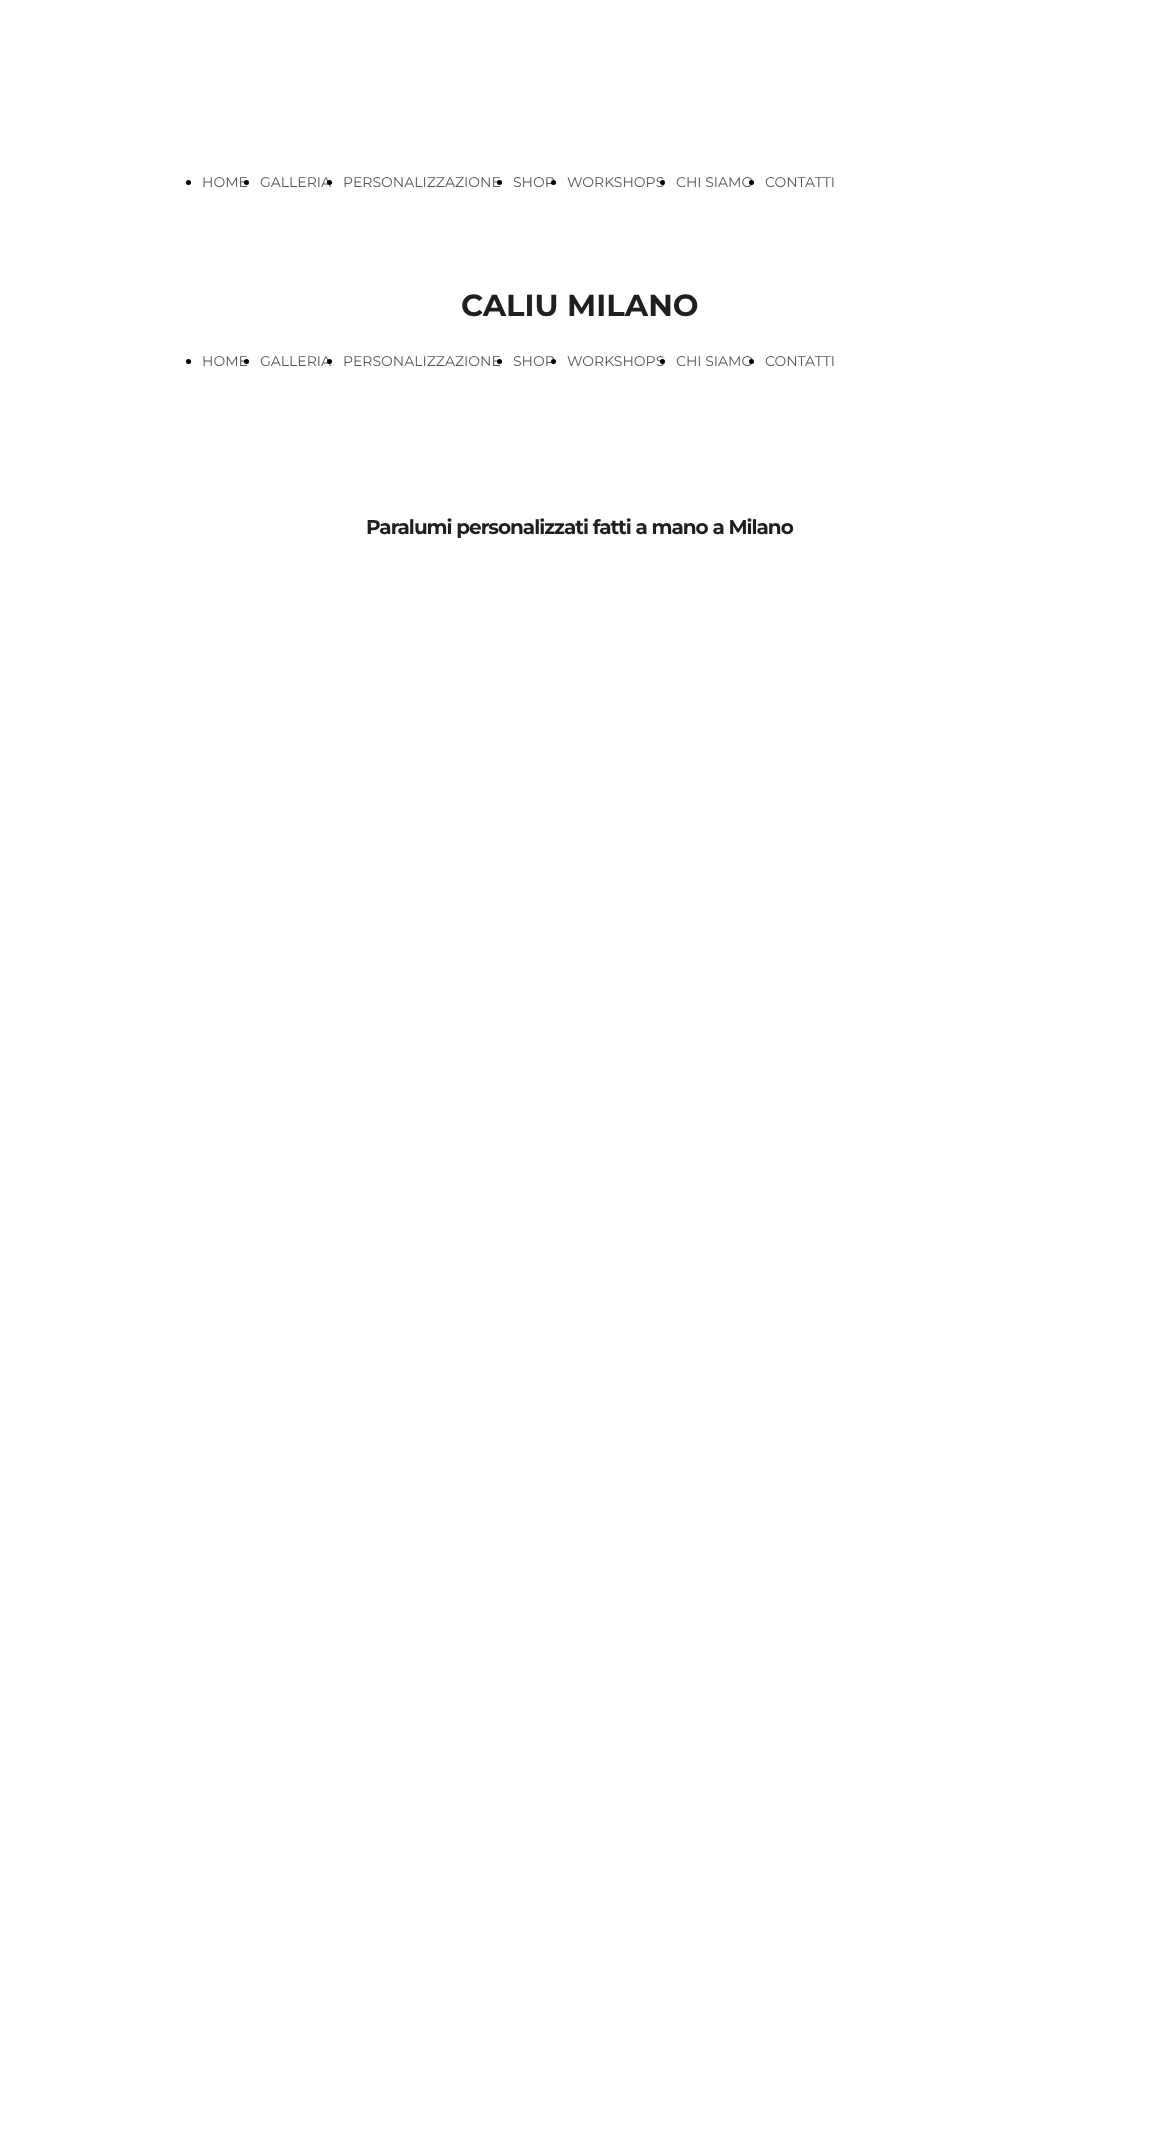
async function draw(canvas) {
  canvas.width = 1160
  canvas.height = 2141
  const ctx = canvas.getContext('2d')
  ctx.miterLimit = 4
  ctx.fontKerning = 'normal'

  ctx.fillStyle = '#fff'
  ctx.fillRect(0, 0, 1160, 2141)
  ctx.fillStyle = '#000'
  ctx.beginPath()
  ctx.arc(188.5, 182.5, 2.5, 0, 2 * Math.PI)
  ctx.fill()
  ctx.font = '14px Montserrat'
  ctx.fillStyle = '#575757'
  ctx.fillText('HOME', 202, 187)
  ctx.fillStyle = '#000'
  ctx.beginPath()
  ctx.arc(246.5, 182.5, 2.5, 0, 2 * Math.PI)
  ctx.fill()
  ctx.fillStyle = '#575757'
  ctx.fillText('GALLERIA', 260, 187)
  ctx.fillStyle = '#000'
  ctx.beginPath()
  ctx.arc(329.5, 182.5, 2.5, 0, 2 * Math.PI)
  ctx.fill()
  ctx.fillStyle = '#575757'
  ctx.fillText('PERSONALIZZAZIONE', 343, 187)
  ctx.fillStyle = '#000'
  ctx.beginPath()
  ctx.arc(499.5, 182.5, 2.5, 0, 2 * Math.PI)
  ctx.fill()
  ctx.fillStyle = '#575757'
  ctx.fillText('SHOP', 513, 187)
  ctx.fillStyle = '#000'
  ctx.beginPath()
  ctx.arc(553.5, 182.5, 2.5, 0, 2 * Math.PI)
  ctx.fill()
  ctx.fillStyle = '#575757'
  ctx.fillText('WORKSHOPS', 567, 187)
  ctx.fillStyle = '#000'
  ctx.beginPath()
  ctx.arc(662.5, 182.5, 2.5, 0, 2 * Math.PI)
  ctx.fill()
  ctx.fillStyle = '#575757'
  ctx.fillText('CHI SIAMO', 676, 187)
  ctx.fillStyle = '#000'
  ctx.beginPath()
  ctx.arc(751.5, 182.5, 2.5, 0, 2 * Math.PI)
  ctx.fill()
  ctx.fillStyle = '#575757'
  ctx.fillText('CONTATTI', 765, 187)
  ctx.font = 'bold 30.5px Montserrat'
  ctx.fillStyle = '#1f1f1f'
  ctx.fillText('CALIU MILANO', 461, 316)
  ctx.fillStyle = '#000'
  ctx.beginPath()
  ctx.arc(188.5, 361.5, 2.5, 0, 2 * Math.PI)
  ctx.fill()
  ctx.font = '14px Montserrat'
  ctx.fillStyle = '#575757'
  ctx.fillText('HOME', 202, 366)
  ctx.fillStyle = '#000'
  ctx.beginPath()
  ctx.arc(246.5, 361.5, 2.5, 0, 2 * Math.PI)
  ctx.fill()
  ctx.fillStyle = '#575757'
  ctx.fillText('GALLERIA', 260, 366)
  ctx.fillStyle = '#000'
  ctx.beginPath()
  ctx.arc(329.5, 361.5, 2.5, 0, 2 * Math.PI)
  ctx.fill()
  ctx.fillStyle = '#575757'
  ctx.fillText('PERSONALIZZAZIONE', 343, 366)
  ctx.fillStyle = '#000'
  ctx.beginPath()
  ctx.arc(499.5, 361.5, 2.5, 0, 2 * Math.PI)
  ctx.fill()
  ctx.fillStyle = '#575757'
  ctx.fillText('SHOP', 513, 366)
  ctx.fillStyle = '#000'
  ctx.beginPath()
  ctx.arc(553.5, 361.5, 2.5, 0, 2 * Math.PI)
  ctx.fill()
  ctx.fillStyle = '#575757'
  ctx.fillText('WORKSHOPS', 567, 366)
  ctx.fillStyle = '#000'
  ctx.beginPath()
  ctx.arc(662.5, 361.5, 2.5, 0, 2 * Math.PI)
  ctx.fill()
  ctx.fillStyle = '#575757'
  ctx.fillText('CHI SIAMO', 676, 366)
  ctx.fillStyle = '#000'
  ctx.beginPath()
  ctx.arc(751.5, 361.5, 2.5, 0, 2 * Math.PI)
  ctx.fill()
  ctx.fillStyle = '#575757'
  ctx.fillText('CONTATTI', 765, 366)
  ctx.letterSpacing = '-1px'
  ctx.font = 'bold 20px Montserrat'
  ctx.fillStyle = '#1f1f1f'
  ctx.fillText('Paralumi personalizzati fatti a mano a Milano', 366, 534)
}

draw(document.querySelector('canvas'))
